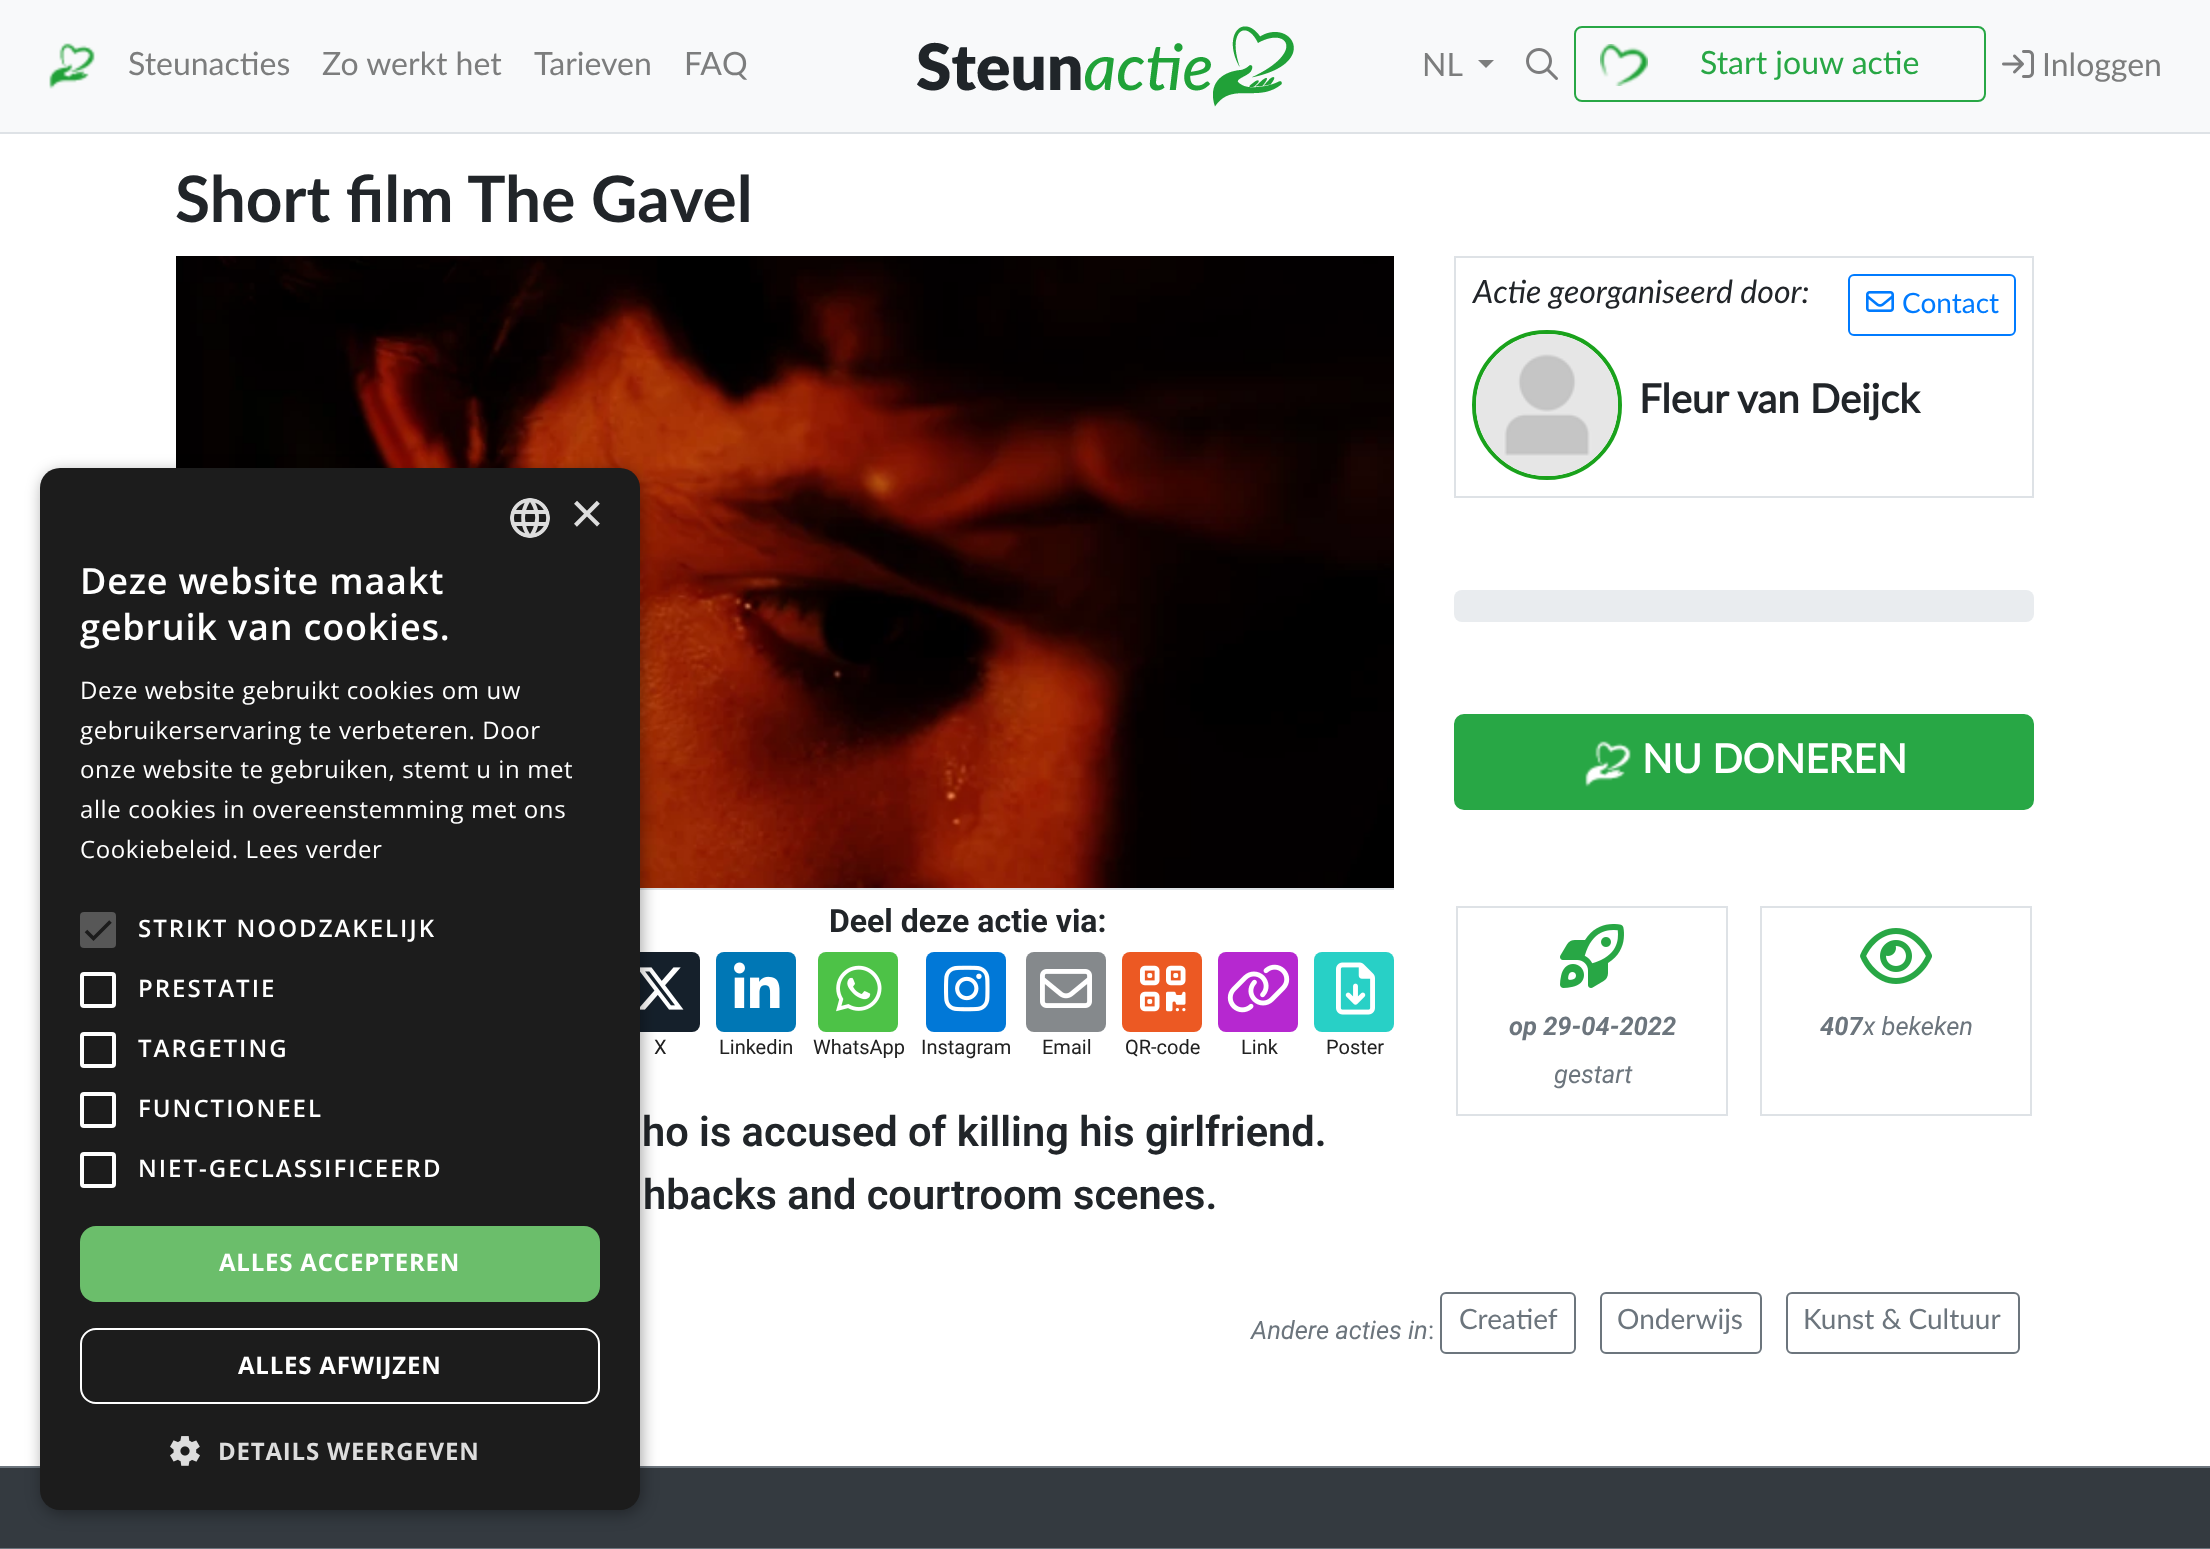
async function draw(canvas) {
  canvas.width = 2210
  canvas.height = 1549
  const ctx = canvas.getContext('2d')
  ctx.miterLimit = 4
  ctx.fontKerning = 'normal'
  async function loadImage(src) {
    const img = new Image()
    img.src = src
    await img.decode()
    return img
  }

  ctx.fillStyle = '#fff'
  ctx.fillRect(0, 0, 2210, 1549)
  ctx.fillStyle = '#f8f9fa'
  ctx.fillRect(0, 0, 2210, 132)
  ctx.fillStyle = '#dee2e6'
  ctx.fillRect(0, 132, 2210, 2)
  ctx.drawImage(await loadImage('image0.png'), 49, 43, 46, 46)
  ctx.font = '32px Lato'
  ctx.fillStyle = '#7c7d7d'
  ctx.fillText('Steunacties', 128, 75)
  ctx.fillText('Zo werkt het', 322, 75)
  ctx.fillText('Tarieven', 534, 75)
  ctx.fillText('FAQ', 684, 75)
  ctx.drawImage(await loadImage('image1.png'), 917, 26, 377, 81)
  ctx.fillText('NL', 1422, 76)
  ctx.beginPath()
  ctx.moveTo(1478, 60)
  ctx.lineTo(1494, 60)
  ctx.lineTo(1486, 68)
  ctx.closePath()
  ctx.fill()
  ctx.drawImage(await loadImage('image2.png'), 1526, 48, 32, 32)
  ctx.drawImage(await loadImage('image3.png'), 1600, 44, 48, 42)
  ctx.beginPath()
  ctx.roundRect(1575, 27, 410, 74, 7)
  ctx.strokeStyle = '#28a745'
  ctx.lineWidth = 2
  ctx.stroke()
  ctx.fillStyle = '#28a745'
  ctx.fillText('Start jouw actie', 1700, 74)
  ctx.drawImage(await loadImage('image4.png'), 2002, 50, 32, 28)
  ctx.fillStyle = '#7c7d7d'
  ctx.fillText('Inloggen', 2042, 76)
  ctx.font = 'bold 64px Lato'
  ctx.fillStyle = '#212529'
  ctx.fillText('Short film The Gavel', 175, 222)
  ctx.fillStyle = '#dee2e6'
  ctx.fillRect(640, 888, 754, 2)
  ctx.drawImage(await loadImage('image5.png'), 176, 256, 1218, 632)
  ctx.font = 'bold 32px Roboto'
  ctx.fillStyle = '#212529'
  ctx.fillText('Deel deze actie via:', 829, 932)
  ctx.fillStyle = '#15202b'
  ctx.beginPath()
  ctx.roundRect(620, 952, 80, 80, 8)
  ctx.fill()
  ctx.drawImage(await loadImage('image6.png'), 640, 967, 44, 43)
  ctx.font = '20px Roboto'
  ctx.fillStyle = '#212121'
  ctx.fillText('X', 654, 1054)
  ctx.fillStyle = '#0077b5'
  ctx.beginPath()
  ctx.roundRect(716, 952, 80, 80, 8)
  ctx.fill()
  ctx.drawImage(await loadImage('image7.png'), 734, 962, 46, 46)
  ctx.fillStyle = '#212121'
  ctx.fillText('Linkedin', 719, 1054)
  ctx.fillStyle = '#4dc247'
  ctx.beginPath()
  ctx.roundRect(818, 952, 80, 80, 8)
  ctx.fill()
  ctx.drawImage(await loadImage('image8.png'), 836, 965, 46, 47)
  ctx.fillStyle = '#212121'
  ctx.fillText('WhatsApp', 813, 1054)
  ctx.fillStyle = '#0178d7'
  ctx.beginPath()
  ctx.roundRect(926, 952, 80, 80, 8)
  ctx.fill()
  ctx.drawImage(await loadImage('image9.png'), 944, 965, 46, 47)
  ctx.fillStyle = '#212121'
  ctx.fillText('Instagram', 921, 1054)
  ctx.fillStyle = '#85898c'
  ctx.beginPath()
  ctx.roundRect(1026, 952, 80, 80, 8)
  ctx.fill()
  ctx.drawImage(await loadImage('image10.png'), 1040, 969, 52, 39)
  ctx.fillStyle = '#212121'
  ctx.fillText('Email', 1042, 1054)
  ctx.fillStyle = '#ec5923'
  ctx.beginPath()
  ctx.roundRect(1122, 952, 80, 80, 8)
  ctx.fill()
  ctx.drawImage(await loadImage('image11.png'), 1140, 965, 46, 47)
  ctx.fillStyle = '#212121'
  ctx.fillText('QR-code', 1125, 1054)
  ctx.fillStyle = '#b628d0'
  ctx.beginPath()
  ctx.roundRect(1218, 952, 80, 80, 8)
  ctx.fill()
  ctx.drawImage(await loadImage('image12.png'), 1227, 964, 63, 49)
  ctx.fillStyle = '#212121'
  ctx.fillText('Link', 1241, 1054)
  ctx.fillStyle = '#28d0c6'
  ctx.beginPath()
  ctx.roundRect(1314, 952, 80, 80, 8)
  ctx.fill()
  ctx.drawImage(await loadImage('image13.png'), 1336, 962, 39, 53)
  ctx.fillStyle = '#212121'
  ctx.fillText('Poster', 1326, 1054)
  ctx.font = '600 41.6px Roboto'
  ctx.fillStyle = '#212529'
  ctx.fillText('ho is accused of killing his girlfriend.', 642, 1146)
  ctx.fillText('hbacks and courtroom scenes.', 643, 1209)
  ctx.strokeStyle = '#dee2e6'
  ctx.strokeRect(1455, 257, 578, 240)
  ctx.font = 'italic 32px Lato'
  ctx.fillText('Actie georganiseerd door:', 1473, 303)
  ctx.beginPath()
  ctx.roundRect(1849, 275, 166, 60, 5)
  ctx.strokeStyle = '#007bff'
  ctx.stroke()
  ctx.drawImage(await loadImage('image14.png'), 1866, 291, 28, 21)
  ctx.font = '28px Lato'
  ctx.fillStyle = '#007bff'
  ctx.fillText('Contact', 1902, 313)
  ctx.beginPath()
  ctx.arc(1547, 405, 73, 0, 2 * Math.PI)
  ctx.strokeStyle = '#1aa21c'
  ctx.lineWidth = 4
  ctx.stroke()
  ctx.drawImage(await loadImage('image15.png'), 1476, 334, 142, 142)
  ctx.font = 'bold 40px "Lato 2"'
  ctx.fillStyle = '#212529'
  ctx.fillText('Fleur van Deijck', 1639, 413)
  ctx.fillStyle = '#e9ecef'
  ctx.beginPath()
  ctx.roundRect(1454, 590, 580, 32, 8)
  ctx.fill()
  ctx.fillStyle = '#28a745'
  ctx.beginPath()
  ctx.roundRect(1455, 715, 578, 94, 9)
  ctx.fill()
  ctx.strokeStyle = '#28a745'
  ctx.lineWidth = 2
  ctx.stroke()
  ctx.drawImage(await loadImage('image16.png'), 1585, 741, 46, 46)
  ctx.fillStyle = '#fff'
  ctx.fillText('NU DONEREN', 1642, 773)
  ctx.strokeStyle = '#dee2e6'
  ctx.strokeRect(1457, 907, 270, 208)
  ctx.drawImage(await loadImage('image17.png'), 1560, 924, 64, 64)
  ctx.font = 'italic bold 25.5px Roboto'
  ctx.fillStyle = '#6c757d'
  ctx.fillText('op 29-04-2022', 1509, 1035)
  ctx.font = 'italic 25.5px Roboto'
  ctx.fillText('gestart', 1554, 1083)
  ctx.strokeRect(1761, 907, 270, 208)
  ctx.drawImage(await loadImage('image18.png'), 1860, 928, 72, 56)
  ctx.font = 'italic bold 25.5px Roboto'
  ctx.fillText('407', 1820, 1035)
  ctx.font = 'italic 25.5px Roboto'
  ctx.fillText('x bekeken', 1863, 1035)
  ctx.fillText('Andere acties in', 1251, 1339)
  ctx.font = '25.5px Roboto'
  ctx.fillText(':', 1428, 1339)
  ctx.beginPath()
  ctx.roundRect(1441, 1293, 134, 60, 5)
  ctx.strokeStyle = '#6c757d'
  ctx.stroke()
  ctx.font = '28px Lato'
  ctx.fillText('Creatief', 1459, 1329)
  ctx.beginPath()
  ctx.roundRect(1601, 1293, 160, 60, 5)
  ctx.stroke()
  ctx.fillText('Onderwijs', 1617, 1329)
  ctx.beginPath()
  ctx.roundRect(1787, 1293, 232, 60, 5)
  ctx.stroke()
  ctx.fillText('Kunst & Cultuur', 1803, 1329)
  ctx.fillStyle = '#343a40'
  ctx.fillRect(0, 1468, 2210, 80)
  ctx.fillStyle = '#6c757d'
  ctx.fillRect(0, 1466, 2210, 2)
  ctx.fillStyle = '#00000059'
  ctx.filter = 'blur(8px)'
  ctx.beginPath()
  ctx.roundRect(42, 472, 600, 1042, 20)
  ctx.fill()
  ctx.filter = 'none'
  ctx.fillStyle = '#1c1c1c'
  ctx.beginPath()
  ctx.roundRect(40, 468, 600, 1042, 20)
  ctx.fill()
  ctx.drawImage(await loadImage('image19.png'), 510, 498, 40, 40)
  ctx.font = '58px Liberation Sans'
  ctx.fillStyle = '#ddd'
  ctx.fillText('×', 570, 533)
  ctx.letterSpacing = '0.8px'
  ctx.font = '600 36px Open Sans'
  ctx.fillStyle = '#fff'
  ctx.fillText('Deze website maakt', 80, 594)
  ctx.fillText('gebruik van cookies.', 80, 640)
  ctx.letterSpacing = '0.6px'
  ctx.font = '24px Open Sans'
  ctx.fillText('Deze website gebruikt cookies om uw', 80, 699)
  ctx.fillText('gebruikerservaring te verbeteren. Door', 80, 739)
  ctx.fillText('onze website te gebruiken, stemt u in met', 80, 778)
  ctx.fillText('alle cookies in overeenstemming met ons', 80, 818)
  ctx.fillText('Cookiebeleid. Lees verder', 80, 858)
  ctx.fillStyle = '#575757'
  ctx.beginPath()
  ctx.roundRect(80, 912, 36, 36, 4)
  ctx.fill()
  ctx.beginPath()
  ctx.moveTo(86, 931)
  ctx.lineTo(93.5, 938.5)
  ctx.lineTo(110.5, 921.5)
  ctx.strokeStyle = '#1c1c1c'
  ctx.lineWidth = 3.6
  ctx.stroke()
  ctx.letterSpacing = '2px'
  ctx.font = '600 24px Open Sans'
  ctx.fillStyle = '#fff'
  ctx.fillText('STRIKT NOODZAKELIJK', 138, 937)
  ctx.beginPath()
  ctx.roundRect(82, 974, 32, 32, 2)
  ctx.strokeStyle = '#fff'
  ctx.lineWidth = 4
  ctx.stroke()
  ctx.fillText('PRESTATIE', 138, 997)
  ctx.beginPath()
  ctx.roundRect(82, 1034, 32, 32, 2)
  ctx.stroke()
  ctx.fillText('TARGETING', 138, 1057)
  ctx.beginPath()
  ctx.roundRect(82, 1094, 32, 32, 2)
  ctx.stroke()
  ctx.fillText('FUNCTIONEEL', 138, 1117)
  ctx.beginPath()
  ctx.roundRect(82, 1154, 32, 32, 2)
  ctx.stroke()
  ctx.fillText('NIET-GECLASSIFICEERD', 138, 1177)
  ctx.fillStyle = '#6bbe6b'
  ctx.beginPath()
  ctx.roundRect(80, 1226, 520, 76, 16)
  ctx.fill()
  ctx.letterSpacing = '0.8px'
  ctx.font = 'bold 24px Open Sans'
  ctx.fillStyle = '#fff'
  ctx.fillText('ALLES ACCEPTEREN', 219, 1271)
  ctx.beginPath()
  ctx.roundRect(81, 1329, 518, 74, 15)
  ctx.lineWidth = 2
  ctx.stroke()
  ctx.fillText('ALLES AFWIJZEN', 238, 1374)
  ctx.drawImage(await loadImage('image20.png'), 170, 1436, 30, 30)
  ctx.fillStyle = '#ddd'
  ctx.fillText('DETAILS WEERGEVEN', 218, 1460)
  ctx.fillStyle = '#6c757d'
  ctx.fillRect(0, 1548, 2210, 1)
}

draw(document.querySelector('canvas'))
